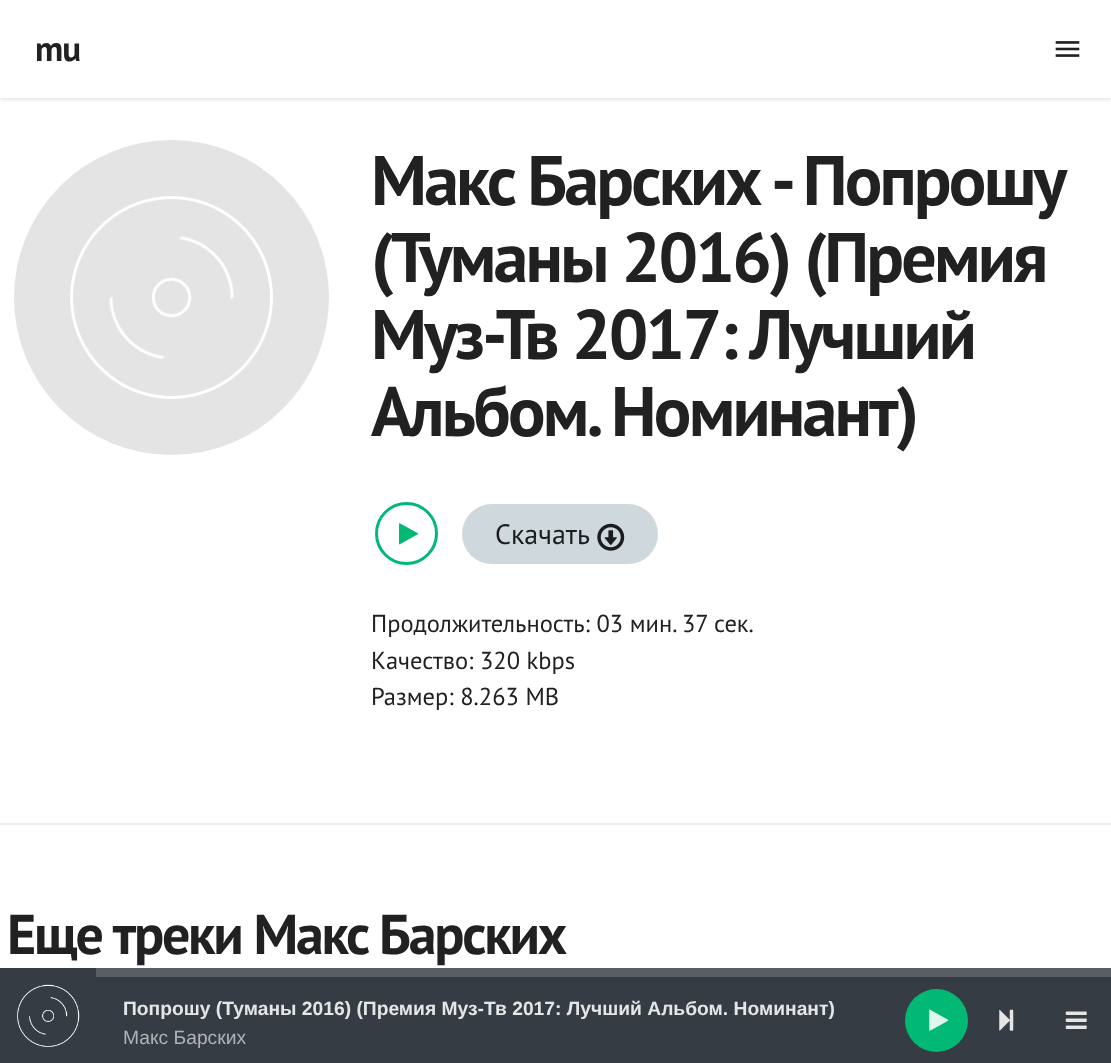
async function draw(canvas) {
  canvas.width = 1111
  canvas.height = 1063
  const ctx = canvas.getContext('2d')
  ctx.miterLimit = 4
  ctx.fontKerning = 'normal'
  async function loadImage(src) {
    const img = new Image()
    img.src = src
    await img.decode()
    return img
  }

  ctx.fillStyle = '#fff'
  ctx.fillRect(0, 0, 1111, 1063)
  ctx.save()
  ctx.beginPath()
  ctx.rect(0, 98, 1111, 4)
  ctx.clip()
  ctx.fillStyle = '#0000001a'
  ctx.filter = 'blur(2px)'
  ctx.beginPath()
  ctx.rect(0, 2, 1111, 98)
  ctx.fill()
  ctx.filter = 'none'
  ctx.restore()
  ctx.letterSpacing = '-1px'
  ctx.font = 'bold 35px PT Sans'
  ctx.fillStyle = '#212121'
  ctx.fillText('mu', 35, 61)
  ctx.drawImage(await loadImage('image0.png'), 1055, 41, 25, 16)
  ctx.fillStyle = '#edeff0'
  ctx.fillRect(0, 823, 1111, 2)
  ctx.fillStyle = '#e4e4e4'
  ctx.beginPath()
  ctx.arc(171.5, 297.5, 157.5, 0, 2 * Math.PI)
  ctx.fill()
  ctx.drawImage(await loadImage('image1.png'), 70, 196, 203, 203)
  ctx.letterSpacing = '-2.8px'
  ctx.wordSpacing = '-1px'
  ctx.font = 'bold 70px PT Sans'
  ctx.fillStyle = '#212121'
  ctx.fillText('Макс Барских', 371, 205)
  ctx.wordSpacing = '0px'
  ctx.fillText('- Попрошу', 771, 205)
  ctx.fillText('(Туманы 2016) (Премия', 371, 282)
  ctx.fillText('Муз-Тв 2017: Лучший', 371, 359)
  ctx.fillText('Альбом. Номинант)', 371, 436)
  ctx.beginPath()
  ctx.arc(406.5, 533.5, 30, 0, 2 * Math.PI)
  ctx.strokeStyle = '#02b875'
  ctx.lineWidth = 3
  ctx.stroke()
  ctx.drawImage(await loadImage('image2.png'), 399, 523, 20, 22)
  ctx.fillStyle = '#cfd8dc'
  ctx.beginPath()
  ctx.roundRect(462, 504, 196, 60, 30)
  ctx.fill()
  ctx.letterSpacing = '0px'
  ctx.font = '28px PT Sans'
  ctx.fillStyle = '#1b1c1d'
  ctx.fillText('Скачать', 495, 544)
  ctx.drawImage(await loadImage('image3.png'), 597, 523, 28, 28)
  ctx.font = '24.5px PT Sans'
  ctx.fillStyle = '#212121'
  ctx.fillText('Продолжительность: 03 мин. 37 сек.', 371, 632)
  ctx.fillText('Качество: 320 kbps', 371, 669)
  ctx.fillText('Размер: 8.263 MB', 371, 705)
  ctx.letterSpacing = '-2.25px'
  ctx.font = 'bold 56px PT Sans'
  ctx.fillText('Еще треки Макс Барских', 7, 954)
  ctx.fillStyle = '#363c43'
  ctx.fillRect(0, 968, 1111, 95)
  ctx.fillStyle = '#595e64'
  ctx.fillRect(96, 968, 1015, 9)
  ctx.fillStyle = '#02b875'
  ctx.beginPath()
  ctx.arc(936.5, 1020.5, 31.5, 0, 2 * Math.PI)
  ctx.fill()
  ctx.drawImage(await loadImage('image4.png'), 929, 1009, 20, 22)
  ctx.drawImage(await loadImage('image5.png'), 999, 1009, 15, 22)
  ctx.drawImage(await loadImage('image6.png'), 1065, 1011, 22, 18)
  ctx.drawImage(await loadImage('image7.png'), 17, 984, 63, 63)
  ctx.letterSpacing = '0px'
  ctx.font = 'bold 19.25px Liberation Sans'
  ctx.fillStyle = '#e5e6e7'
  ctx.fillText('Попрошу (Туманы 2016) (Премия Муз-Тв 2017: Лучший Альбом. Номинант)', 123, 1015)
  ctx.font = '19.25px Liberation Sans'
  ctx.fillStyle = '#b1b3b6'
  ctx.fillText('Макс Барских', 123, 1044)
}

draw(document.querySelector('canvas'))
